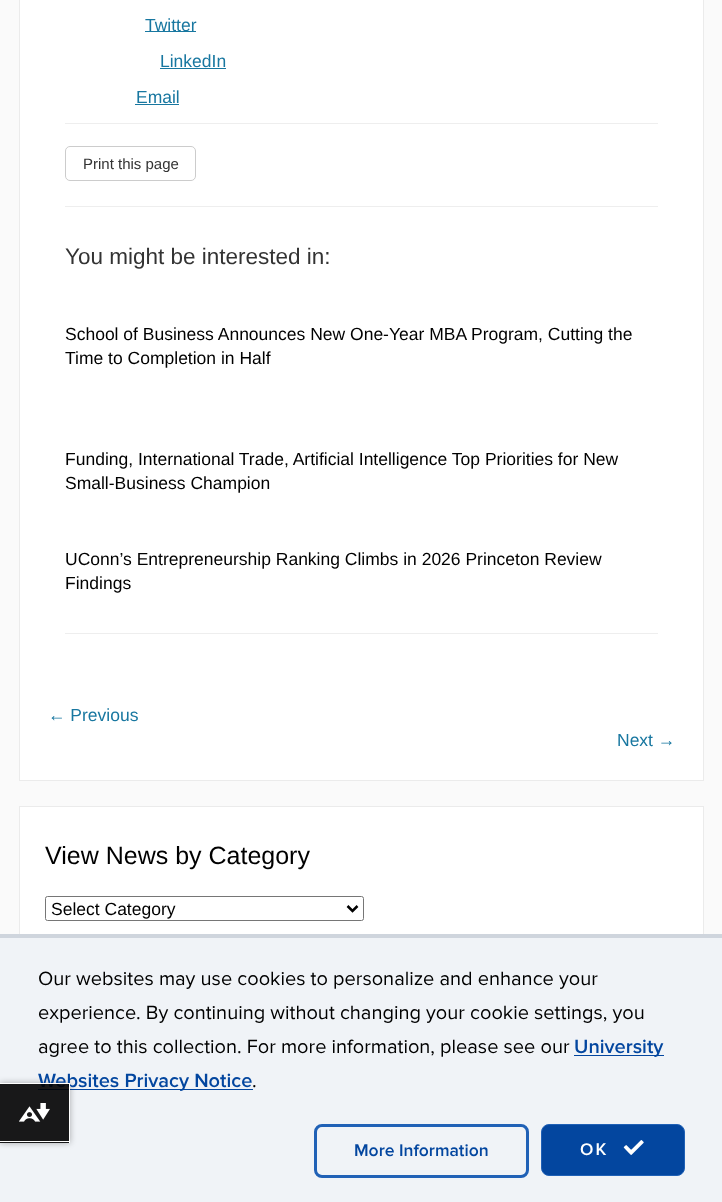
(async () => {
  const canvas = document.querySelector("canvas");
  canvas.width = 722;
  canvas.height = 1202;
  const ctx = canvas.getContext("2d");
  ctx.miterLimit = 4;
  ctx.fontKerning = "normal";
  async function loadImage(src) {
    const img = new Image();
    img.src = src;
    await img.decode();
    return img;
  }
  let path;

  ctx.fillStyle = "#fafafa";
  ctx.fillRect(0, 0, 722, 1202);
  for (const [x, y, w, h, color] of [
    [20, 0, 683, 780, "#ffffff"],
    [703, 0, 1, 781, "#ebebeb"],
    [19, 780, 685, 1, "#ebebeb"],
    [19, 0, 1, 781, "#ebebeb"],
    [65, 123, 593, 1, "#eeeeee"],
    [145, 31, 51, 1, "#1877a0"],
    [160, 68, 66, 1, "#1877a0"],
    [135, 104, 44, 1, "#1877a0"],
  ]) {
    ctx.fillStyle = color;
    ctx.fillRect(x, y, w, h);
  }
  ctx.beginPath();
  ctx.roundRect(65.5, 146.5, 130, 34, 4.5);
  ctx.strokeStyle = "#cccccc";
  ctx.stroke();
  for (const [x, y, w, h, color] of [
    [65, 206, 593, 1, "#eeeeee"],
    [65, 633, 593, 1, "#eeeeee"],
    [20, 807, 683, 127, "#ffffff"],
  ]) {
    ctx.fillStyle = color;
    ctx.fillRect(x, y, w, h);
  }
  ctx.strokeStyle = "#ebebeb";
  ctx.strokeRect(19.5, 806.5, 684, 178);
  ctx.beginPath();
  ctx.roundRect(45.5, 896.5, 318, 24, 2);
  ctx.strokeStyle = "#767676";
  ctx.stroke();
  path = new Path2D("M347.5 906L352.5 911L357.5 906");
  ctx.strokeStyle = "#000000";
  ctx.lineWidth = 2.5;
  ctx.stroke(path);
  for (const [x, y, w, h, color] of [
    [0, 938, 722, 264, "#f0f3f7"],
    [0, 934, 722, 4, "#cfd5dd"],
    [574, 1055, 90, 1, "#03469f"],
    [38, 1089, 215, 1, "#03469f"],
  ]) {
    ctx.fillStyle = color;
    ctx.fillRect(x, y, w, h);
  }
  ctx.beginPath();
  ctx.roundRect(315.5, 1125.5, 212, 51, 6.5);
  ctx.strokeStyle = "#2061b6";
  ctx.lineWidth = 3;
  ctx.stroke();
  ctx.beginPath();
  ctx.roundRect(541.5, 1124.5, 143, 51, 7.5);
  ctx.fill();
  ctx.lineWidth = 1;
  ctx.stroke();
  ctx.drawImage(await loadImage("img/1.png"), 623, 1140, 21, 15);
  ctx.save();
  path = new Path2D("M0 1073H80V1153H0ZM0 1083H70V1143H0Z");
  ctx.clip(path, "evenodd");
  ctx.fillStyle = "rgba(0, 0, 0, 0.3)";
  ctx.filter = "blur(3px)";
  ctx.beginPath();
  ctx.rect(0, 1083, 70, 60);
  ctx.fill();
  ctx.filter = "none";
  ctx.restore();
  ctx.font = "17.5px Liberation Sans";
  ctx.fillStyle = "#1877a0";
  for (const [text, x, y] of [
    ["Twitter", 145, 31],
    ["LinkedIn", 160, 67],
    ["Email", 136, 103],
  ]) {
    ctx.fillText(text, x, y);
  }
  ctx.font = "15px Liberation Sans";
  ctx.fillStyle = "#333333";
  ctx.fillText("Print this page", 83, 169);
  ctx.font = "22.5px Liberation Sans";
  ctx.fillText("You might be interested in:", 65, 264);
  ctx.font = "17.5px Liberation Sans";
  ctx.fillStyle = "#000000";
  for (const [text, x, y] of [
    ["School of Business Announces New One-Year MBA Program, Cutting the", 65, 340],
    ["Time to Completion in Half", 65, 364],
    ["Funding, International Trade, Artificial Intelligence Top Priorities for New", 65, 465],
    ["Small-Business Champion", 65, 489],
    ["UConn’s Entrepreneurship Ranking Climbs in 2026 Princeton Review", 65, 565],
    ["Findings", 65, 589],
  ]) {
    ctx.fillText(text, x, y);
  }
  ctx.fillStyle = "#1877a0";
  ctx.fillText("← Previous", 48, 721);
  ctx.fillText("Next →", 617, 746);
  ctx.font = "25px Liberation Sans";
  ctx.fillStyle = "#000000";
  ctx.fillText("View News by Category", 45, 864);
  ctx.font = "17.5px Liberation Sans";
  ctx.fillText("Select Category", 51, 915);
  ctx.font = "20px Proxima Nova";
  for (const [text, x, y] of [
    ["Our websites may use cookies to personalize and enhance your", 38, 985],
    ["experience. By continuing without changing your cookie settings, you", 38, 1019],
    ["agree to this collection. For more information, please see our", 38, 1053],
  ]) {
    ctx.fillText(text, x, y);
  }
  ctx.font = "600 20px Proxima Nova";
  ctx.fillStyle = "#03469f";
  ctx.fillText("University", 574, 1053);
  ctx.fillText("Websites Privacy Notice", 38, 1087);
  ctx.font = "20px Proxima Nova";
  ctx.fillStyle = "#000000";
  ctx.fillText(".", 252, 1087);
  ctx.font = "600 17.5px Proxima Nova";
  ctx.fillStyle = "#03469f";
  ctx.fillText("More Information", 354, 1156);
  ctx.letterSpacing = "2px";
  ctx.fillStyle = "#ffffff";
  ctx.fillText("OK", 580, 1155);
  for (const [x, y, w, h, color] of [
    [0, 1084, 69, 59, "rgba(0, 0, 0, 0.9)"],
    [0, 1083, 70, 1, "#ffffff"],
    [69, 1083, 1, 60, "#ffffff"],
    [0, 1141, 70, 1, "#ffffff"],
  ]) {
    ctx.fillStyle = color;
    ctx.fillRect(x, y, w, h);
  }
  ctx.drawImage(await loadImage("img/2.png"), 19, 1103, 31, 19);
})();
